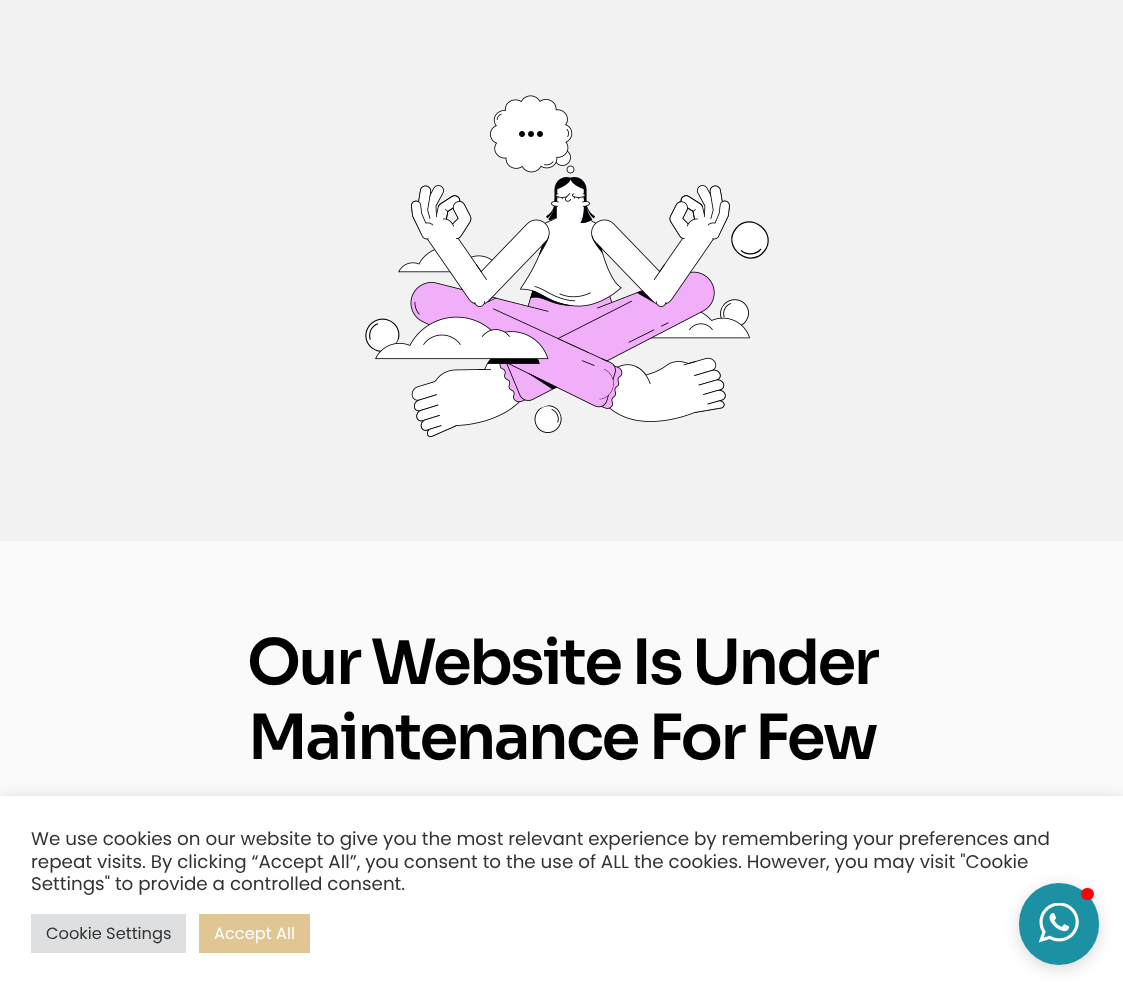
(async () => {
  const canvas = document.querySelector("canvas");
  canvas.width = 1123;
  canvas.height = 989;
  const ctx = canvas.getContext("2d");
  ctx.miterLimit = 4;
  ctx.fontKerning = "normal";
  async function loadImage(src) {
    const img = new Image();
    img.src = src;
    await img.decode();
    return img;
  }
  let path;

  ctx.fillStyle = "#fafafa";
  ctx.fillRect(0, 0, 1123, 989);
  ctx.fillStyle = "#f2f2f2";
  ctx.fillRect(0, 0, 1123, 541);
  ctx.drawImage(await loadImage("img/2.png"), 720, 299, 29, 27);
  ctx.drawImage(await loadImage("img/3.png"), 365, 318, 35, 34);
  ctx.drawImage(await loadImage("img/4.png"), 534, 405, 28, 28);
  ctx.drawImage(await loadImage("img/1.png"), 375, 95, 375, 342);
  ctx.fillStyle = "#ffffff";
  path = new Path2D("M736 228C751 210 779 234 764 252C749 270 721 246 736 228Z");
  ctx.fill(path);
  path = new Path2D("M736 228.5C750.5 210.5 779 233.5 764 251.5C749.5 269.5 721 246.5 736 228.5ZM761 249C756 255 747 255.5 741 250.5");
  ctx.strokeStyle = "#010101";
  ctx.lineWidth = 1.2;
  ctx.stroke(path);
  ctx.fillStyle = "rgba(172, 171, 171, 0.3)";
  ctx.filter = "blur(6px)";
  ctx.beginPath();
  ctx.rect(0, 795, 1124, 194);
  ctx.fill();
  ctx.filter = "none";
  for (const [x, y, w, h, color] of [
    [0, 796, 1123, 193, "#ffffff"],
    [31, 914, 155, 39, "#dedfe0"],
    [199, 914, 111, 39, "#e0c693"],
  ]) {
    ctx.fillStyle = color;
    ctx.fillRect(x, y, w, h);
  }
  ctx.fillStyle = "rgba(0, 0, 0, 0.15)";
  ctx.filter = "blur(7.5px)";
  ctx.beginPath();
  ctx.roundRect(1019, 886, 80, 83, 40);
  ctx.fill();
  ctx.filter = "none";
  ctx.fillStyle = "#1c91a4";
  ctx.beginPath();
  ctx.roundRect(1019, 883, 80, 82, 40);
  ctx.fill();
  ctx.fillStyle = "#ff0000";
  ctx.beginPath();
  ctx.roundRect(1081, 888, 13, 12, 6);
  ctx.fill();
  ctx.drawImage(await loadImage("img/5.png"), 1039, 903, 40, 40);
  ctx.letterSpacing = "-2.5px";
  ctx.font = "600 62.5px Sora";
  ctx.fillStyle = "#000000";
  ctx.fillText("Our Website Is Under", 247, 684);
  ctx.fillText("Maintenance For Few", 248, 759);
  ctx.letterSpacing = "0px";
  ctx.font = "18.33px Poppins";
  ctx.fillStyle = "#333333";
  for (const [text, x, y] of [
    ["We use cookies on our website to give you the most relevant experience by remembering your preferences and", 31, 845],
    ["repeat visits. By clicking “Accept All”, you consent to the use of ALL the cookies. However, you may visit \"Cookie", 31, 868],
    ["Settings\" to provide a controlled consent.", 31, 890],
  ]) {
    ctx.fillText(text, x, y);
  }
  ctx.font = "16.25px Poppins";
  ctx.fillText("Cookie Settings", 46, 939);
  ctx.fillStyle = "#ffffff";
  ctx.fillText("Accept All", 214, 939);
})();
